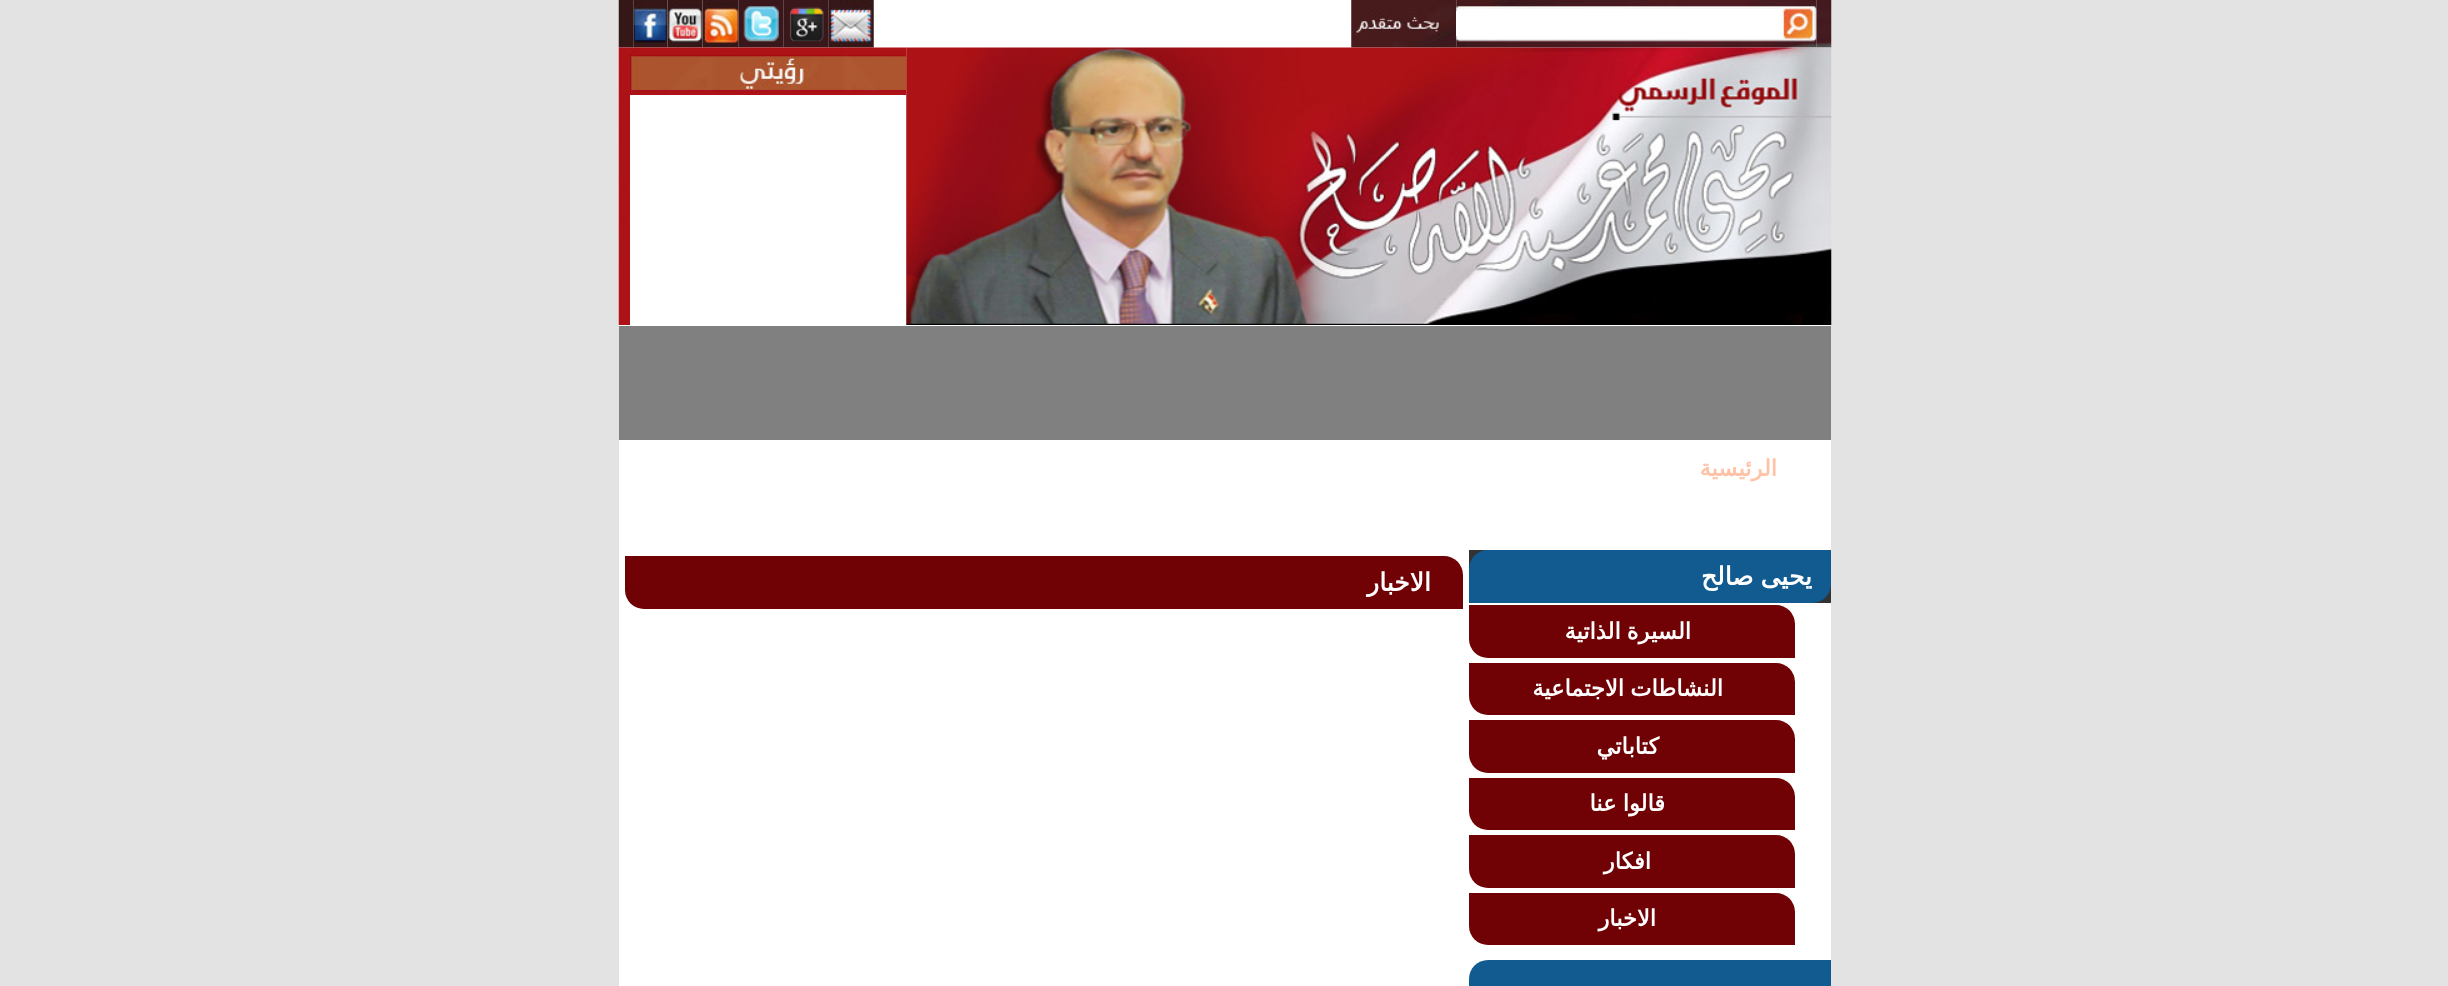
(async () => {
  const canvas = document.querySelector("canvas");
  canvas.width = 2448;
  canvas.height = 986;
  const ctx = canvas.getContext("2d");
  ctx.miterLimit = 4;
  ctx.fontKerning = "normal";
  async function loadImage(src) {
    const img = new Image();
    img.src = src;
    await img.decode();
    return img;
  }
  let path;

  ctx.fillStyle = "#e3e3e3";
  ctx.fillRect(0, 0, 2448, 986);
  ctx.fillStyle = "#ffffff";
  ctx.fillRect(619, 0, 1212, 986);
  ctx.drawImage(await loadImage("img/3.png"), 1351, 0, 106, 48);
  ctx.drawImage(await loadImage("img/2.png"), 1456, 0, 361, 9);
  ctx.drawImage(await loadImage("img/1.png"), 1816, 0, 16, 48);
  ctx.drawImage(await loadImage("img/5.png"), 783, 0, 46, 48);
  ctx.drawImage(await loadImage("img/4.png"), 828, 0, 46, 48);
  ctx.drawImage(await loadImage("img/10.png"), 618, 0, 16, 48);
  ctx.drawImage(await loadImage("img/9.png"), 633, 0, 35, 48);
  ctx.drawImage(await loadImage("img/8.png"), 667, 0, 36, 48);
  ctx.drawImage(await loadImage("img/7.png"), 702, 0, 37, 48);
  ctx.drawImage(await loadImage("img/6.png"), 738, 0, 46, 48);
  ctx.drawImage(await loadImage("img/11.png"), 1780, 8, 37, 31);
  ctx.fillRect(1456, 11, 1, 25);
  ctx.drawImage(await loadImage("img/12.png"), 1456, 38, 361, 10);
  ctx.drawImage(await loadImage("img/14.png"), 630, 47, 277, 48);
  ctx.drawImage(await loadImage("img/13.png"), 906, 47, 926, 278);
  ctx.drawImage(await loadImage("img/15.png"), 618, 47, 12, 278);
  ctx.fillStyle = "#808080";
  ctx.fillRect(619, 326, 1212, 114);
  ctx.fillStyle = "#333333";
  ctx.fillRect(1469, 550, 362, 53);
  ctx.fillStyle = "#115b90";
  ctx.beginPath();
  ctx.roundRect(1469, 550, 362, 53, [19, 0, 19, 0]);
  ctx.fill();
  ctx.fillStyle = "#700205";
  ctx.beginPath();
  ctx.roundRect(1469, 605, 326, 53, [0, 19, 0, 19]);
  ctx.fill();
  ctx.beginPath();
  ctx.roundRect(1469, 663, 326, 52, [0, 19, 0, 19]);
  ctx.fill();
  ctx.beginPath();
  ctx.roundRect(1469, 720, 326, 53, [0, 19, 0, 19]);
  ctx.fill();
  ctx.beginPath();
  ctx.roundRect(1469, 778, 326, 52, [0, 19, 0, 19]);
  ctx.fill();
  ctx.beginPath();
  ctx.roundRect(1469, 835, 326, 53, [0, 19, 0, 19]);
  ctx.fill();
  ctx.beginPath();
  ctx.roundRect(1469, 893, 326, 52, [0, 19, 0, 19]);
  ctx.fill();
  ctx.fillStyle = "#115b90";
  path = new Path2D("M1488 960H1831V986C1831 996.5 1822.5 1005 1812 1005H1469V979C1469 968.5 1477.5 960 1488 960Z");
  ctx.fill(path);
  ctx.fillStyle = "#700205";
  ctx.beginPath();
  ctx.roundRect(625, 556, 838, 53, [0, 19, 0, 19]);
  ctx.fill();
  ctx.direction = "rtl";
  ctx.font = "bold 22.5px DejaVu Sans";
  ctx.fillStyle = "#ffc2a6";
  ctx.fillText("الرئيسية", 1777, 476);
  ctx.wordSpacing = "-1px";
  ctx.font = "bold 25px DejaVu Sans";
  ctx.fillStyle = "#ffffff";
  ctx.fillText("يحيى صالح", 1812, 585);
  ctx.font = "bold 22.5px DejaVu Sans";
  ctx.fillText("السيرة الذاتية", 1691, 639);
  ctx.fillText("النشاطات الاجتماعية", 1723, 696);
  ctx.wordSpacing = "0px";
  ctx.fillText("كتاباتي", 1659, 754);
  ctx.wordSpacing = "-1px";
  ctx.fillText("قالوا عنا", 1665, 811);
  ctx.wordSpacing = "0px";
  ctx.fillText("افكار", 1651, 869);
  ctx.fillText("الاخبار", 1656, 926);
  ctx.font = "bold 25px DejaVu Sans";
  ctx.fillText("الاخبار", 1431, 591);
})();
